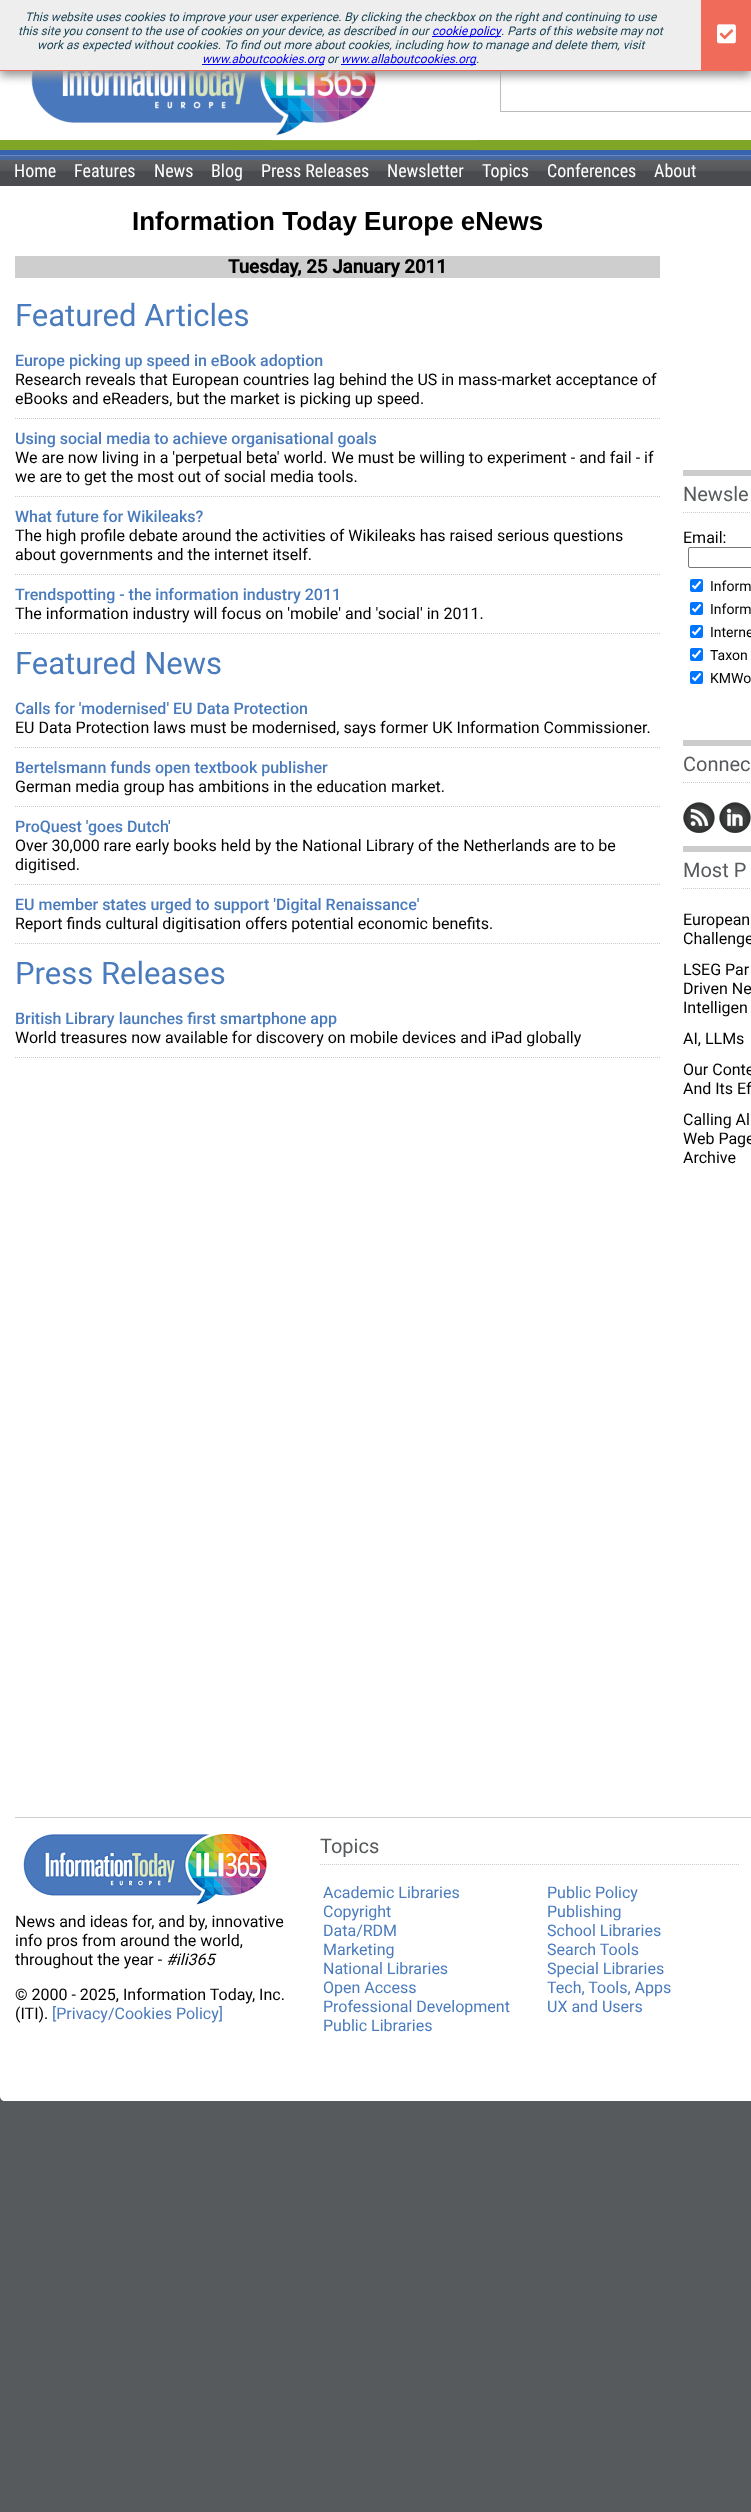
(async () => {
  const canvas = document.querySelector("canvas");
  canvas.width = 751;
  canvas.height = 2512;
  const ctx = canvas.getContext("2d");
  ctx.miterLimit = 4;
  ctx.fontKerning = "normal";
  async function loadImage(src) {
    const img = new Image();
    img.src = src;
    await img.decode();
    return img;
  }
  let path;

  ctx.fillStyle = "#575a5c";
  ctx.fillRect(0, 0, 751, 2512);
  ctx.drawImage(await loadImage("img/2.png"), 0, 71, 751, 89);
  ctx.strokeStyle = "#bbbbbb";
  ctx.strokeRect(500.5, 50.5, 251, 61);
  ctx.fillStyle = "#999999";
  ctx.filter = "blur(5px)";
  ctx.beginPath();
  ctx.rect(0, 5, 751, 71);
  ctx.fill();
  ctx.filter = "none";
  for (const [x, y, w, h, color] of [
    [0, 0, 701, 70, "#eeeeee"],
    [0, 70, 751, 1, "#f06b5a"],
    [432, 36, 69, 1, "#0000ee"],
    [202, 64, 122, 1, "#0000ee"],
    [341, 64, 135, 1, "#0000ee"],
    [701, 0, 50, 70, "#f06b5a"],
  ]) {
    ctx.fillStyle = color;
    ctx.fillRect(x, y, w, h);
  }
  ctx.drawImage(await loadImage("img/1.png"), 717, 24, 19, 20);
  ctx.drawImage(await loadImage("img/3.png"), 0, 155, 751, 31);
  ctx.fillStyle = "#ffffff";
  path = new Path2D("M0 186H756V2096C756 2099 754 2101 751 2101H5C2 2101 0 2099 0 2096Z");
  ctx.fill(path);
  ctx.fillStyle = "#cecece";
  ctx.fillRect(15, 256, 645, 22);
  path = new Path2D("M15 418.5H660");
  ctx.strokeStyle = "#cccccc";
  ctx.setLineDash([1, 1]);
  ctx.stroke(path);
  path = new Path2D("M15 496.5H660");
  ctx.stroke(path);
  path = new Path2D("M15 574.5H660");
  ctx.stroke(path);
  path = new Path2D("M15 633.5H660");
  ctx.stroke(path);
  path = new Path2D("M15 747.5H660");
  ctx.stroke(path);
  path = new Path2D("M15 806.5H660");
  ctx.stroke(path);
  path = new Path2D("M15 884.5H660");
  ctx.stroke(path);
  path = new Path2D("M15 943.5H660");
  ctx.stroke(path);
  path = new Path2D("M15 1057.5H660");
  ctx.stroke(path);
  ctx.fillStyle = "#cccccc";
  ctx.fillRect(683, 470, 68, 6);
  path = new Path2D("M683 512.5H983");
  ctx.stroke(path);
  ctx.beginPath();
  ctx.roundRect(688.5, 547.5, 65, 20, 1.5);
  ctx.strokeStyle = "#767676";
  ctx.setLineDash([]);
  ctx.stroke();
  ctx.fillStyle = "#0075ff";
  ctx.beginPath();
  ctx.roundRect(690, 579, 13, 13, 2);
  ctx.fill();
  path = new Path2D("M692.5 585.5L695 588L700.5 581.5");
  ctx.strokeStyle = "#ffffff";
  ctx.lineWidth = 2.1;
  ctx.stroke(path);
  ctx.beginPath();
  ctx.roundRect(690, 602, 13, 13, 2);
  ctx.fill();
  path = new Path2D("M692.5 608.5L695 611L700.5 604.5");
  ctx.stroke(path);
  ctx.beginPath();
  ctx.roundRect(690, 625, 13, 13, 2);
  ctx.fill();
  path = new Path2D("M692.5 631.5L695 634L700.5 627.5");
  ctx.stroke(path);
  ctx.beginPath();
  ctx.roundRect(690, 648, 13, 13, 2);
  ctx.fill();
  path = new Path2D("M692.5 654.5L695 657L700.5 650.5");
  ctx.stroke(path);
  ctx.beginPath();
  ctx.roundRect(690, 671, 13, 13, 2);
  ctx.fill();
  path = new Path2D("M692.5 677.5L695 680L700.5 673.5");
  ctx.stroke(path);
  ctx.fillStyle = "#cccccc";
  ctx.fillRect(683, 740, 68, 6);
  path = new Path2D("M683 782.5H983");
  ctx.strokeStyle = "#cccccc";
  ctx.lineWidth = 1;
  ctx.setLineDash([1, 1]);
  ctx.stroke(path);
  ctx.drawImage(await loadImage("img/4.png"), 683, 802, 32, 31);
  ctx.drawImage(await loadImage("img/5.png"), 719, 802, 32, 31);
  ctx.fillRect(683, 846, 68, 6);
  path = new Path2D("M683 888.5H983");
  ctx.stroke(path);
  ctx.fillStyle = "#cecece";
  ctx.fillRect(15, 1817, 736, 1);
  ctx.drawImage(await loadImage("img/6.png"), 23, 1834, 244, 71);
  path = new Path2D("M320 1864.5H740");
  ctx.stroke(path);
  ctx.font = "italic 12px Roboto";
  ctx.fillStyle = "#1a4455";
  ctx.fillText("This website uses cookies to improve your user experience. By clicking the checkbox on the right and continuing to use", 25, 21);
  ctx.fillText("this site you consent to the use of cookies on your device, as described in our", 18, 35);
  ctx.wordSpacing = "-1px";
  ctx.fillStyle = "#0000ee";
  ctx.fillText("cookie policy", 432, 35);
  ctx.wordSpacing = "0px";
  ctx.fillStyle = "#1a4455";
  ctx.fillText(". Parts of this website may not", 501, 35);
  ctx.fillText("work as expected without cookies. To find out more about cookies, including how to manage and delete them, visit", 37, 49);
  ctx.fillStyle = "#0000ee";
  ctx.fillText("www.aboutcookies.org", 202, 63);
  ctx.fillStyle = "#1a4455";
  ctx.fillText("or", 327, 63);
  ctx.fillStyle = "#0000ee";
  ctx.fillText("www.allaboutcookies.org", 341, 63);
  ctx.fillStyle = "#1a4455";
  ctx.fillText(".", 476, 63);
  ctx.font = "18px Roboto Condensed";
  ctx.fillStyle = "#ffffff";
  for (const [text, x, y] of [
    ["Home", 14, 177],
    ["Features", 74, 177],
    ["News", 154, 177],
    ["Blog", 211, 177],
    ["Press Releases", 261, 177],
    ["Newsletter", 387, 177],
    ["Topics", 482, 177],
    ["Conferences", 547, 177],
    ["About", 654, 177],
  ]) {
    ctx.fillText(text, x, y);
  }
  ctx.font = "bold 26px Liberation Sans";
  ctx.fillStyle = "#000000";
  ctx.fillText("Information Today Europe eNews", 132, 230);
  ctx.font = "bold 18.75px Roboto";
  ctx.fillText("Tuesday, 25 January 2011", 228, 273);
  ctx.font = "31px Roboto";
  ctx.fillStyle = "#4a7bbd";
  ctx.fillText("Featured Articles", 15, 326);
  ctx.font = "500 16px Roboto";
  ctx.fillText("Europe picking up speed in eBook adoption", 15, 366);
  ctx.font = "16px Roboto";
  ctx.fillStyle = "#000000";
  ctx.fillText("Research reveals that European countries lag behind the US in mass-market acceptance of", 15, 385);
  ctx.fillText("eBooks and eReaders, but the market is picking up speed.", 15, 404);
  ctx.font = "500 16px Roboto";
  ctx.fillStyle = "#4a7bbd";
  ctx.fillText("Using social media to achieve organisational goals", 15, 444);
  ctx.font = "16px Roboto";
  ctx.fillStyle = "#000000";
  ctx.fillText("We are now living in a 'perpetual beta' world. We must be willing to experiment - and fail - if", 15, 463);
  ctx.fillText("we are to get the most out of social media tools.", 15, 482);
  ctx.font = "500 16px Roboto";
  ctx.fillStyle = "#4a7bbd";
  ctx.fillText("What future for Wikileaks?", 15, 522);
  ctx.font = "16px Roboto";
  ctx.fillStyle = "#000000";
  ctx.fillText("The high profile debate around the activities of Wikileaks has raised serious questions", 15, 541);
  ctx.fillText("about governments and the internet itself.", 15, 560);
  ctx.font = "500 16px Roboto";
  ctx.fillStyle = "#4a7bbd";
  ctx.fillText("Trendspotting - the information industry 2011", 15, 600);
  ctx.font = "16px Roboto";
  ctx.fillStyle = "#000000";
  ctx.fillText("The information industry will focus on 'mobile' and 'social' in 2011.", 15, 619);
  ctx.font = "31px Roboto";
  ctx.fillStyle = "#4a7bbd";
  ctx.fillText("Featured News", 15, 674);
  ctx.font = "500 16px Roboto";
  ctx.fillText("Calls for 'modernised' EU Data Protection", 15, 714);
  ctx.font = "16px Roboto";
  ctx.fillStyle = "#000000";
  ctx.fillText("EU Data Protection laws must be modernised, says former UK Information Commissioner.", 15, 733);
  ctx.font = "500 16px Roboto";
  ctx.fillStyle = "#4a7bbd";
  ctx.fillText("Bertelsmann funds open textbook publisher", 15, 773);
  ctx.font = "16px Roboto";
  ctx.fillStyle = "#000000";
  ctx.fillText("German media group has ambitions in the education market.", 15, 792);
  ctx.font = "500 16px Roboto";
  ctx.fillStyle = "#4a7bbd";
  ctx.fillText("ProQuest 'goes Dutch'", 15, 832);
  ctx.font = "16px Roboto";
  ctx.fillStyle = "#000000";
  ctx.fillText("Over 30,000 rare early books held by the National Library of the Netherlands are to be", 15, 851);
  ctx.fillText("digitised.", 15, 870);
  ctx.font = "500 16px Roboto";
  ctx.fillStyle = "#4a7bbd";
  ctx.fillText("EU member states urged to support 'Digital Renaissance'", 15, 910);
  ctx.font = "16px Roboto";
  ctx.fillStyle = "#000000";
  ctx.fillText("Report finds cultural digitisation offers potential economic benefits.", 15, 929);
  ctx.font = "31px Roboto";
  ctx.fillStyle = "#4a7bbd";
  ctx.fillText("Press Releases", 15, 984);
  ctx.font = "500 16px Roboto";
  ctx.fillText("British Library launches first smartphone app", 15, 1024);
  ctx.font = "16px Roboto";
  ctx.fillStyle = "#000000";
  ctx.fillText("World treasures now available for discovery on mobile devices and iPad globally", 15, 1043);
  ctx.font = "20px Roboto";
  ctx.fillStyle = "#575a5c";
  ctx.fillText("Newsle", 683, 501);
  ctx.font = "16px Roboto";
  ctx.fillStyle = "#000000";
  ctx.fillText("Email:", 683, 543);
  ctx.font = "14px Roboto";
  for (const [text, x, y] of [
    ["Inform", 710, 591],
    ["Inform", 710, 614],
    ["Interne", 710, 637],
    ["Taxon", 710, 660],
    ["KMWo", 710, 683],
  ]) {
    ctx.fillText(text, x, y);
  }
  ctx.font = "20px Roboto";
  ctx.fillStyle = "#575a5c";
  ctx.fillText("Connec", 683, 771);
  ctx.fillText("Most P", 683, 877);
  ctx.font = "16px Roboto";
  ctx.fillStyle = "#000000";
  for (const [text, x, y] of [
    ["European", 683, 925],
    ["Challenge", 683, 944],
    ["LSEG Par", 683, 975],
    ["Driven Ne", 683, 994],
    ["Intelligen", 683, 1013],
    ["AI, LLMs", 683, 1044],
    ["Our Conte", 683, 1075],
    ["And Its Ef", 683, 1094],
    ["Calling Al", 683, 1125],
    ["Web Page", 683, 1144],
    ["Archive", 683, 1163],
    ["News and ideas for, and by, innovative", 15, 1927],
    ["info pros from around the world,", 15, 1946],
    ["throughout the year -", 15, 1965],
  ]) {
    ctx.fillText(text, x, y);
  }
  ctx.font = "italic 16px Roboto";
  ctx.fillText("#ili365", 166, 1965);
  ctx.font = "16px Roboto";
  ctx.fillText("© 2000 - 2025, Information Today, Inc.", 15, 2000);
  ctx.fillText("(ITI).", 15, 2019);
  ctx.fillStyle = "#4a7bbd";
  ctx.fillText("[Privacy/Cookies Policy]", 52, 2019);
  ctx.font = "20px Roboto";
  ctx.fillStyle = "#575a5c";
  ctx.fillText("Topics", 320, 1853);
  ctx.font = "16px Roboto";
  ctx.fillStyle = "#4a7bbd";
  for (const [text, x, y] of [
    ["Academic Libraries", 323, 1898],
    ["Copyright", 323, 1917],
    ["Data/RDM", 323, 1936],
    ["Marketing", 323, 1955],
    ["National Libraries", 323, 1974],
    ["Open Access", 323, 1993],
    ["Professional Development", 323, 2012],
    ["Public Libraries", 323, 2031],
    ["Public Policy", 547, 1898],
    ["Publishing", 547, 1917],
    ["School Libraries", 547, 1936],
    ["Search Tools", 547, 1955],
    ["Special Libraries", 547, 1974],
    ["Tech, Tools, Apps", 547, 1993],
    ["UX and Users", 547, 2012],
  ]) {
    ctx.fillText(text, x, y);
  }
})();
